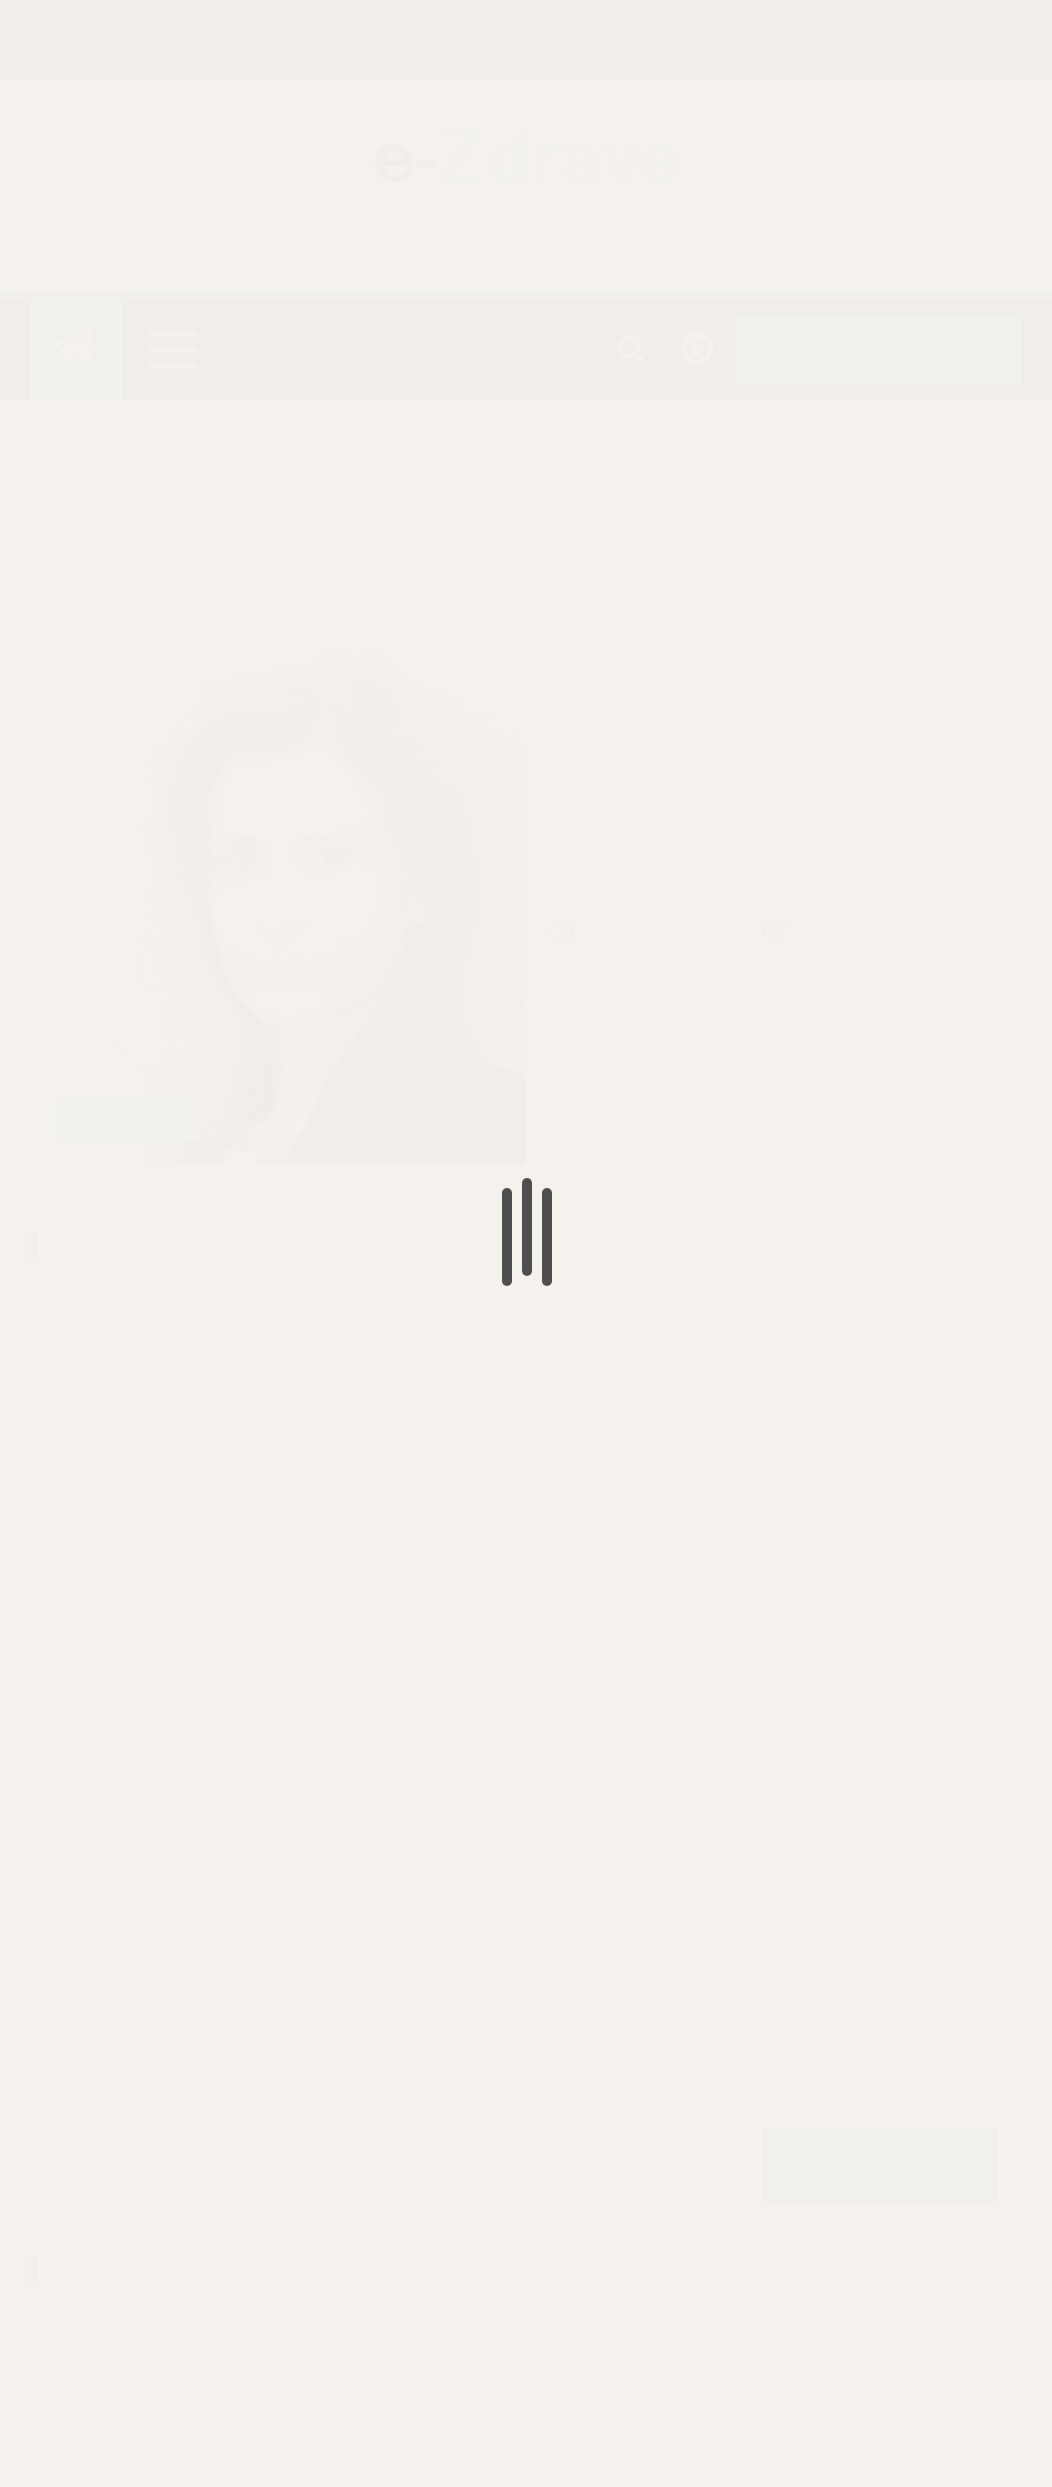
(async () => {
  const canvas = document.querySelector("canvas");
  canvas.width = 1052;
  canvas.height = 2487;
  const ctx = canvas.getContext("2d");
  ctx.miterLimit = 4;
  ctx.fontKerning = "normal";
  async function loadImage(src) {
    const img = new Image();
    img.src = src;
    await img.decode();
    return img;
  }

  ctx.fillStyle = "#f5f2ee";
  ctx.fillRect(0, 0, 1052, 2487);
  ctx.fillStyle = "#f1eeea";
  ctx.fillRect(0, 0, 1052, 80);
  ctx.drawImage(await loadImage("img/1.png"), 373, 129, 308, 54);
  for (const [x, y, w, h, color] of [
    [0, 298, 1052, 102, "#f1eeea"],
    [0, 292, 1052, 6, "#f0f0ed"],
    [30, 298, 92, 102, "#f0f0ed"],
  ]) {
    ctx.fillStyle = color;
    ctx.fillRect(x, y, w, h);
  }
  ctx.drawImage(await loadImage("img/2.png"), 54, 328, 44, 35);
  for (const [x, y, w, h, color] of [
    [150, 348, 46, 4, "#f5f2ee"],
    [150, 332, 46, 4, "#f5f2ee"],
    [150, 364, 46, 4, "#f5f2ee"],
  ]) {
    ctx.fillStyle = color;
    ctx.fillRect(x, y, w, h);
  }
  ctx.drawImage(await loadImage("img/3.png"), 618, 336, 26, 26);
  ctx.fillStyle = "#f4eeea";
  ctx.fillRect(666, 316, 66, 66);
  ctx.drawImage(await loadImage("img/4.png"), 682, 333, 31, 31);
  ctx.fillStyle = "#f0f0ed";
  ctx.fillRect(732, 316, 290, 68);
  ctx.drawImage(await loadImage("img/5.png"), 30, 644, 496, 520);
  ctx.fillStyle = "rgba(240, 240, 237, 0.95)";
  ctx.fillRect(54, 1100, 146, 40);
  ctx.drawImage(await loadImage("img/6.png"), 550, 919, 24, 25);
  ctx.drawImage(await loadImage("img/7.png"), 762, 921, 24, 20);
  for (const [x, y, w, h, color] of [
    [30, 1232, 8, 30, "#f0f0ed"],
    [762, 2128, 236, 76, "#f0f0ed"],
    [30, 2256, 8, 30, "#f0f0ed"],
  ]) {
    ctx.fillStyle = color;
    ctx.fillRect(x, y, w, h);
  }
  ctx.fillStyle = "#4e4e4e";
  ctx.beginPath();
  ctx.roundRect(522, 1178, 10, 98, 5);
  ctx.fill();
  ctx.beginPath();
  ctx.roundRect(502, 1188, 10, 98, 5);
  ctx.fill();
  ctx.beginPath();
  ctx.roundRect(542, 1188, 10, 98, 5);
  ctx.fill();
})();
